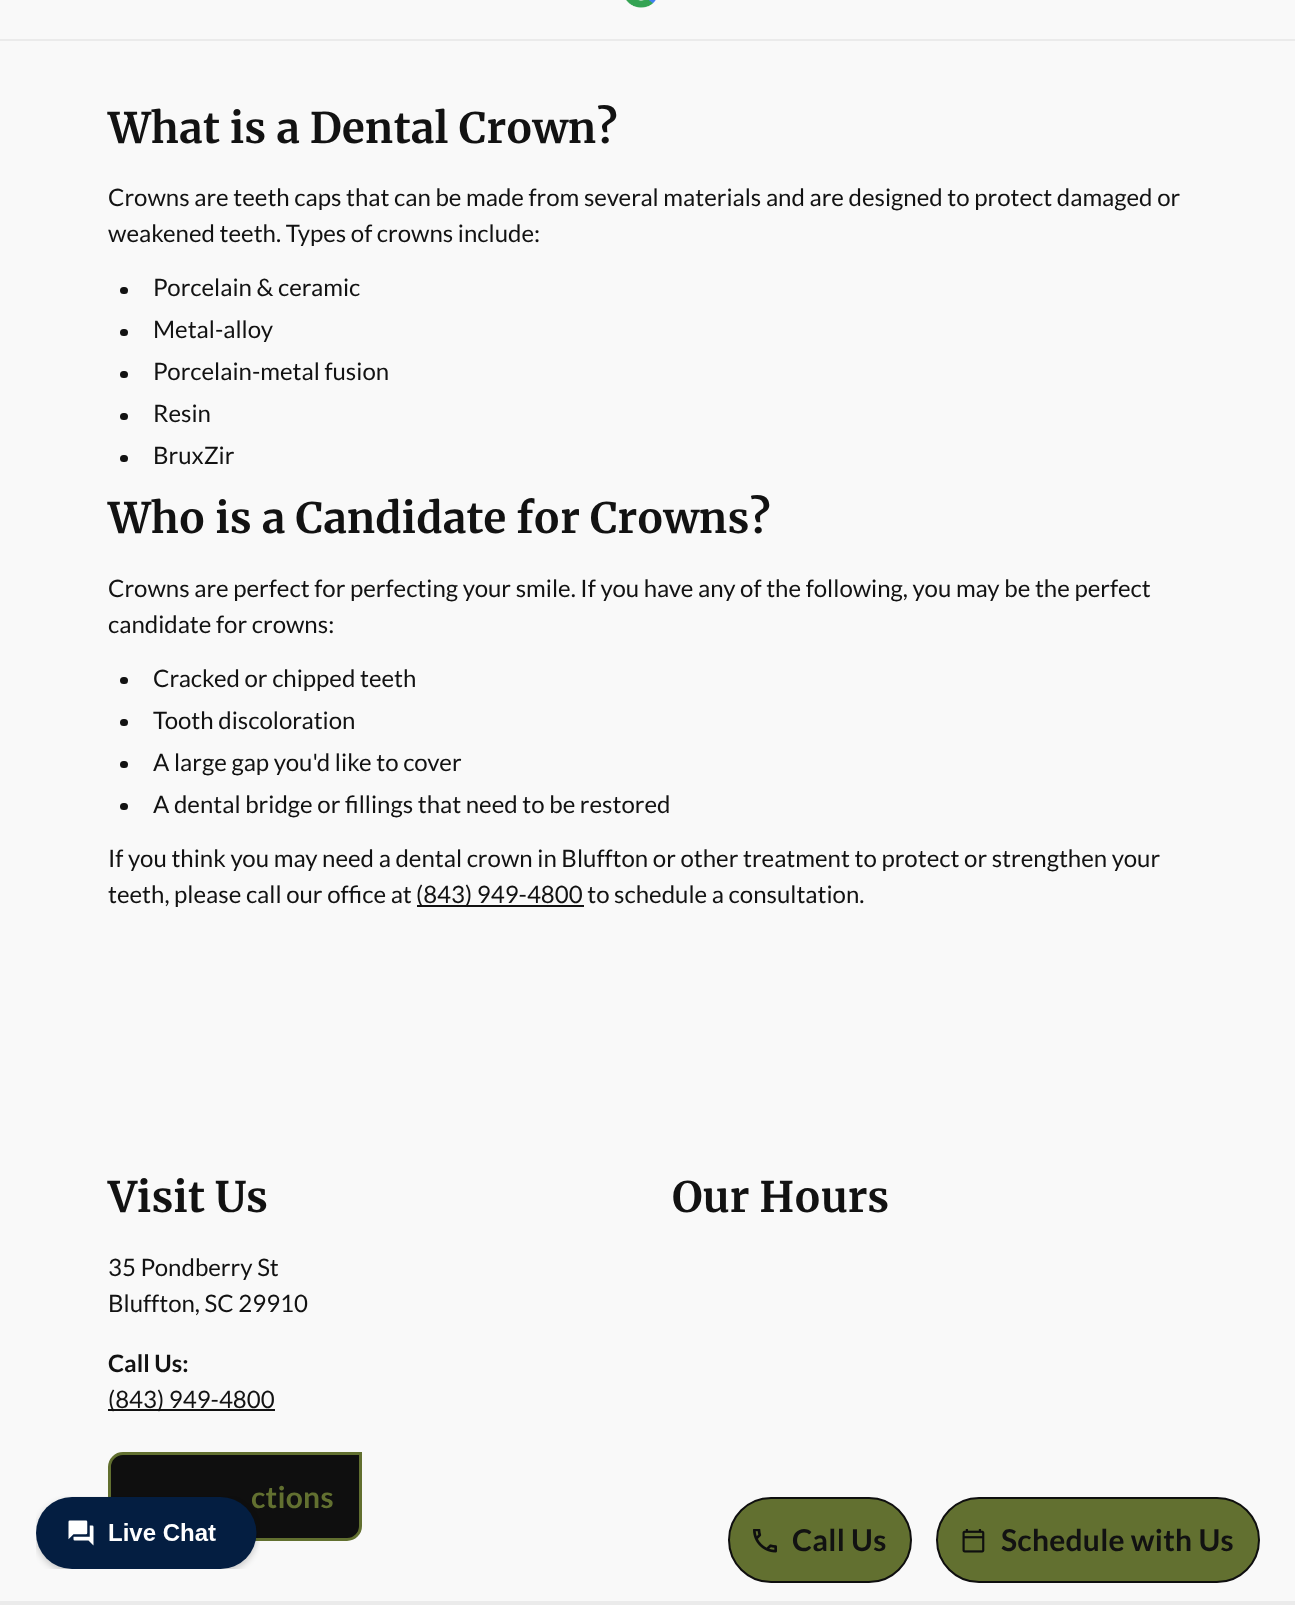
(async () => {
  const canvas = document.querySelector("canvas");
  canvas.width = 1295;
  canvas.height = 1605;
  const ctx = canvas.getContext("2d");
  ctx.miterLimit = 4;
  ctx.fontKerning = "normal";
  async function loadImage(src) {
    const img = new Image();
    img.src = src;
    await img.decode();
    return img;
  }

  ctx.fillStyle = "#f9f9f9";
  ctx.fillRect(0, 0, 1295, 1605);
  ctx.fillStyle = "#ebebeb";
  ctx.fillRect(0, 39, 1295, 2);
  ctx.drawImage(await loadImage("img/1.png"), 626, 0, 30, 8);
  ctx.fillStyle = "#121212";
  ctx.beginPath();
  ctx.roundRect(120, 287, 8, 7, 3.5);
  ctx.fill();
  ctx.beginPath();
  ctx.roundRect(120, 329, 8, 7, 3.5);
  ctx.fill();
  ctx.beginPath();
  ctx.roundRect(120, 371, 8, 7, 3.5);
  ctx.fill();
  ctx.beginPath();
  ctx.roundRect(120, 413, 8, 7, 3.5);
  ctx.fill();
  ctx.beginPath();
  ctx.roundRect(120, 455, 8, 7, 3.5);
  ctx.fill();
  ctx.beginPath();
  ctx.roundRect(120, 677, 8, 7, 3.5);
  ctx.fill();
  ctx.beginPath();
  ctx.roundRect(120, 719, 8, 7, 3.5);
  ctx.fill();
  ctx.beginPath();
  ctx.roundRect(120, 761, 8, 7, 3.5);
  ctx.fill();
  ctx.beginPath();
  ctx.roundRect(120, 803, 8, 7, 3.5);
  ctx.fill();
  ctx.fillRect(417, 905, 167, 2);
  ctx.fillRect(108, 1409, 167, 2);
  ctx.fillStyle = "#0f0f0f";
  ctx.beginPath();
  ctx.roundRect(109.5, 1453.5, 251, 86, [13.5, 0, 13.5, 0]);
  ctx.fill();
  ctx.strokeStyle = "#627030";
  ctx.lineWidth = 3;
  ctx.stroke();
  ctx.fillStyle = "#627030";
  ctx.beginPath();
  ctx.roundRect(729, 1498, 182, 84, 42);
  ctx.fill();
  ctx.strokeStyle = "#0f0f0f";
  ctx.lineWidth = 2;
  ctx.stroke();
  ctx.drawImage(await loadImage("img/2.png"), 753, 1529, 24, 24);
  ctx.beginPath();
  ctx.roundRect(937, 1498, 322, 84, 42);
  ctx.fill();
  ctx.stroke();
  ctx.drawImage(await loadImage("img/3.png"), 962, 1529, 23, 24);
  ctx.fillStyle = "#ebebeb";
  ctx.fillRect(0, 1601, 1295, 4);
  ctx.font = "bold 42px Merriweather";
  ctx.fillStyle = "#121212";
  ctx.fillText("What is a Dental Crown?", 108, 143);
  ctx.font = "24px Lato";
  for (const [text, x, y] of [
    ["Crowns are teeth caps that can be made from several materials and are designed to protect damaged or", 108, 206],
    ["weakened teeth. Types of crowns include:", 108, 242],
    ["Porcelain & ceramic", 153, 296],
    ["Metal-alloy", 153, 338],
    ["Porcelain-metal fusion", 153, 380],
    ["Resin", 153, 422],
    ["BruxZir", 153, 464],
  ]) {
    ctx.fillText(text, x, y);
  }
  ctx.font = "bold 42px Merriweather";
  ctx.fillText("Who is a Candidate for Crowns?", 108, 533);
  ctx.font = "24px Lato";
  for (const [text, x, y] of [
    ["Crowns are perfect for perfecting your smile. If you have any of the following, you may be the perfect", 108, 597],
    ["candidate for crowns:", 108, 633],
    ["Cracked or chipped teeth", 153, 687],
    ["Tooth discoloration", 153, 729],
    ["A large gap you'd like to cover", 153, 771],
    ["A dental bridge or fillings that need to be restored", 153, 813],
    ["If you think you may need a dental crown in Bluffton or other treatment to protect or strengthen your", 108, 867],
    ["teeth, please call our office at", 108, 903],
    ["(843) 949-4800 to schedule a consultation.", 416, 903],
  ]) {
    ctx.fillText(text, x, y);
  }
  ctx.font = "bold 42px Merriweather";
  ctx.fillText("Visit Us", 108, 1212);
  ctx.font = "24px Lato";
  ctx.fillText("35 Pondberry St", 108, 1276);
  ctx.fillText("Bluffton, SC 29910", 108, 1312);
  ctx.font = "bold 24px Lato";
  ctx.fillText("Call Us:", 108, 1372);
  ctx.font = "24px Lato";
  ctx.fillText("(843) 949-4800", 108, 1408);
  ctx.letterSpacing = "0.25px";
  ctx.font = "bold 30px Lato";
  ctx.fillStyle = "#627030";
  ctx.fillText("ctions", 251, 1508);
  ctx.letterSpacing = "0px";
  ctx.font = "bold 42px Merriweather";
  ctx.fillStyle = "#121212";
  ctx.fillText("Our Hours", 672, 1212);
  ctx.letterSpacing = "0.25px";
  ctx.font = "bold 30px Lato";
  ctx.fillText("Call Us", 792, 1551);
  ctx.fillText("Schedule with Us", 1001, 1551);
  ctx.drawImage(await loadImage("img/4.png"), 36, 1496, 224, 73);
})();
